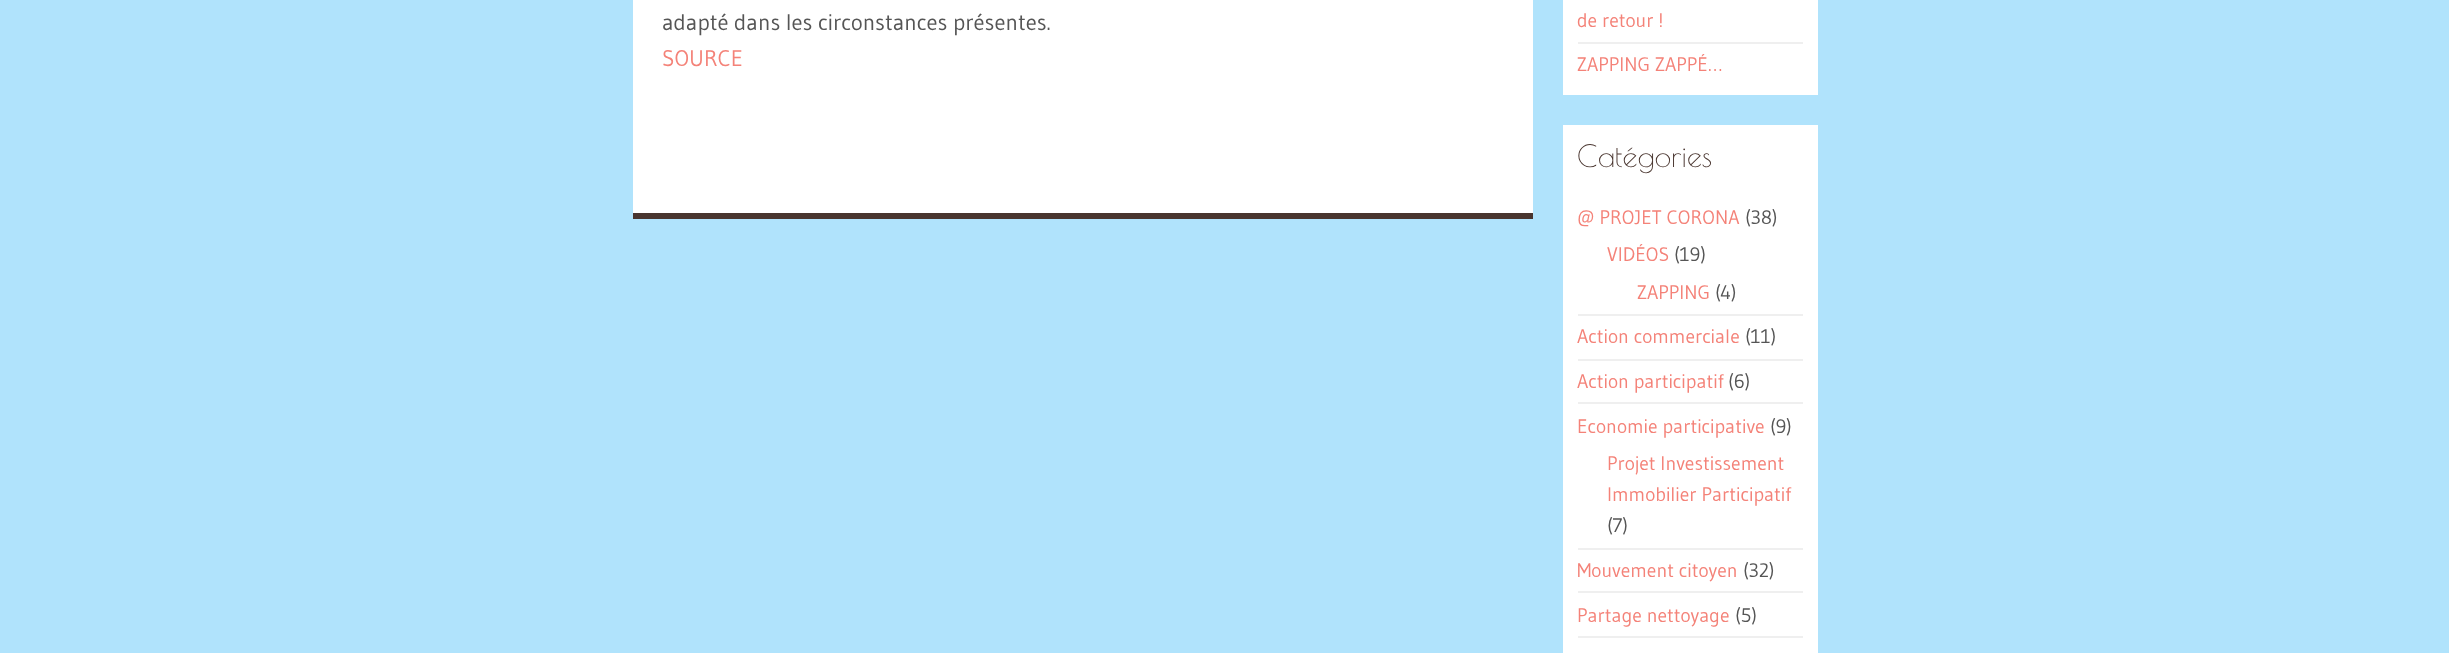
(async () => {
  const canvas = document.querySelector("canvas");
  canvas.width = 2449;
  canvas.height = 653;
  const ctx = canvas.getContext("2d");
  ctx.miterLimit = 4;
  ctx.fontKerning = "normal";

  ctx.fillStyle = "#b0e3fc";
  ctx.fillRect(0, 0, 2449, 653);
  for (const [x, y, w, h, color] of [
    [633, 0, 900, 213, "#ffffff"],
    [633, 213, 900, 6, "#49352f"],
    [1563, 0, 255, 95, "#ffffff"],
    [1578, 42, 225, 2, "#efefef"],
    [1563, 125, 255, 528, "#ffffff"],
    [1578, 314, 225, 2, "#efefef"],
    [1578, 359, 225, 2, "#efefef"],
    [1578, 402, 225, 2, "#efefef"],
    [1578, 548, 225, 2, "#efefef"],
    [1578, 591, 225, 2, "#efefef"],
    [1578, 636, 225, 2, "#efefef"],
  ]) {
    ctx.fillStyle = color;
    ctx.fillRect(x, y, w, h);
  }
  ctx.font = "22.5px Gudea";
  ctx.fillStyle = "#555555";
  ctx.fillText("adapté dans les circonstances présentes.", 662, 30);
  ctx.fillStyle = "#f48278";
  ctx.fillText("SOURCE", 662, 66);
  ctx.font = "19.5px Gudea";
  ctx.fillText("de retour !", 1577, 27);
  ctx.fillText("ZAPPING ZAPPÉ…", 1577, 71);
  ctx.font = "30px Poiret One";
  ctx.fillStyle = "#49352f";
  ctx.fillText("Catégories", 1577, 167);
  ctx.font = "19.5px Gudea";
  ctx.fillStyle = "#f48278";
  ctx.fillText("@ PROJET CORONA", 1577, 224);
  ctx.fillStyle = "#555555";
  ctx.fillText("(38)", 1745, 224);
  ctx.fillStyle = "#f48278";
  ctx.fillText("VIDÉOS", 1607, 261);
  ctx.fillStyle = "#555555";
  ctx.fillText("(19)", 1674, 261);
  ctx.fillStyle = "#f48278";
  ctx.fillText("ZAPPING", 1637, 299);
  ctx.fillStyle = "#555555";
  ctx.fillText("(4)", 1715, 299);
  ctx.fillStyle = "#f48278";
  ctx.fillText("Action commerciale", 1577, 343);
  ctx.fillStyle = "#555555";
  ctx.fillText("(11)", 1745, 343);
  ctx.fillStyle = "#f48278";
  ctx.fillText("Action participatif", 1577, 388);
  ctx.fillStyle = "#555555";
  ctx.fillText("(6)", 1728, 388);
  ctx.fillStyle = "#f48278";
  ctx.fillText("Economie participative", 1577, 433);
  ctx.fillStyle = "#555555";
  ctx.fillText("(9)", 1770, 433);
  ctx.fillStyle = "#f48278";
  ctx.fillText("Projet Investissement", 1607, 470);
  ctx.fillText("Immobilier Participatif", 1607, 501);
  ctx.fillStyle = "#555555";
  ctx.fillText("(7)", 1607, 532);
  ctx.fillStyle = "#f48278";
  ctx.fillText("Mouvement citoyen", 1577, 577);
  ctx.fillStyle = "#555555";
  ctx.fillText("(32)", 1743, 577);
  ctx.fillStyle = "#f48278";
  ctx.fillText("Partage nettoyage", 1577, 622);
  ctx.fillStyle = "#555555";
  ctx.fillText("(5)", 1735, 622);
})();
